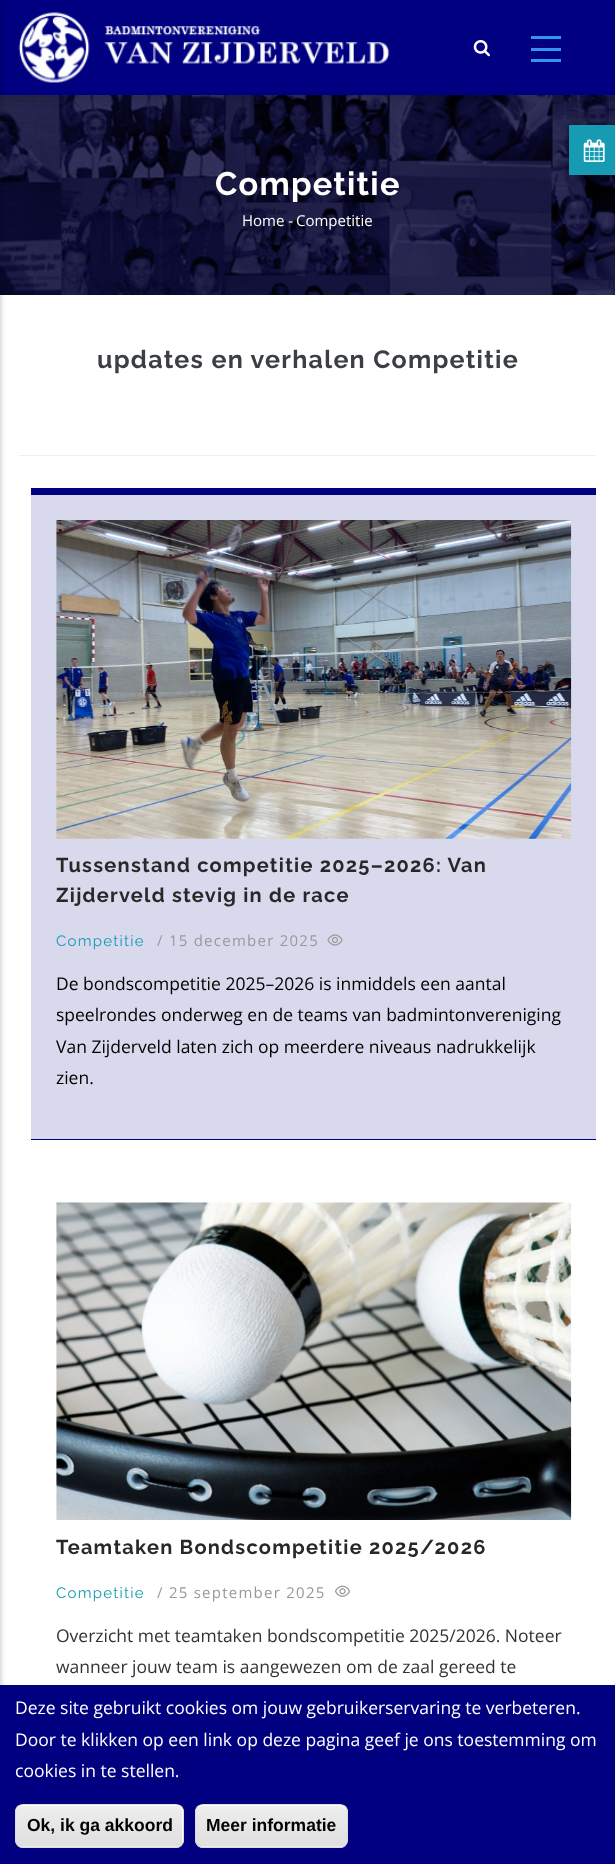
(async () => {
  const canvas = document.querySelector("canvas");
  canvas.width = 615;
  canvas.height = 1864;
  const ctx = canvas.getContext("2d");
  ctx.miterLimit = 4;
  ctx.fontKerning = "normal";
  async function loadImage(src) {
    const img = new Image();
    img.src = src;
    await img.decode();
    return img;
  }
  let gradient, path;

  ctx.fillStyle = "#ffffff";
  ctx.fillRect(0, 0, 615, 1864);
  ctx.drawImage(await loadImage("img/4.png"), 0, 95, 615, 200);
  ctx.fillStyle = "rgba(0, 0, 0, 0.1)";
  ctx.filter = "blur(3px)";
  ctx.beginPath();
  ctx.rect(-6, -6, 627, 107);
  ctx.fill();
  ctx.filter = "none";
  ctx.fillStyle = "#000080";
  ctx.fillRect(0, 0, 615, 95);
  ctx.fillStyle = "rgba(0, 0, 0, 0.2)";
  ctx.filter = "blur(2.5px)";
  ctx.beginPath();
  ctx.rect(-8, 4, 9, 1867);
  ctx.fill();
  ctx.filter = "none";
  ctx.drawImage(await loadImage("img/1.png"), 473, 40, 17, 17);
  for (const [x, y, w, h, color] of [
    [531, 36, 30, 3, "#3296ed"],
    [531, 48, 30, 3, "#3296ed"],
    [531, 59, 30, 3, "#3296ed"],
  ]) {
    ctx.fillStyle = color;
    ctx.fillRect(x, y, w, h);
  }
  ctx.drawImage(await loadImage("img/2.png"), 18, 12, 372, 71);
  ctx.fillStyle = "rgba(0, 0, 0, 0.5)";
  ctx.filter = "blur(3px)";
  ctx.beginPath();
  ctx.rect(569, 125, 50, 50);
  ctx.fill();
  ctx.filter = "none";
  ctx.fillStyle = "#179bb2";
  ctx.fillRect(569, 125, 46, 50);
  ctx.drawImage(await loadImage("img/3.png"), 583, 139, 22, 23);
  for (const [x, y, w, h, color] of [
    [19, 455, 577, 1, "#eeeeee"],
    [31, 495, 565, 644, "#d9d9ed"],
    [31, 488, 565, 7, "#000080"],
    [31, 1139, 565, 1, "#000080"],
  ]) {
    ctx.fillStyle = color;
    ctx.fillRect(x, y, w, h);
  }
  ctx.drawImage(await loadImage("img/5.png"), 56, 520, 516, 319);
  ctx.drawImage(await loadImage("img/6.png"), 327, 934, 16, 12);
  ctx.drawImage(await loadImage("img/7.png"), 56, 1202, 516, 318);
  ctx.drawImage(await loadImage("img/8.png"), 335, 1585, 15, 12);
  ctx.fillRect(0, 1685, 615, 179);
  ctx.save();
  ctx.beginPath();
  ctx.roundRect(15, 1804, 169, 44, 8);
  ctx.clip();
  gradient = ctx.createLinearGradient(99, 1805, 99, 1846);
  gradient.addColorStop(0.05, "#ededed");
  gradient.addColorStop(1, "#dfdfdf");
  ctx.fillStyle = gradient;
  ctx.fillRect(15, 1805, 169, 41);
  gradient = ctx.createLinearGradient(99, 1846, 99, 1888);
  gradient.addColorStop(0.05, "#ededed");
  gradient.addColorStop(1, "#dfdfdf");
  ctx.fillStyle = gradient;
  ctx.fillRect(15, 1846, 169, 2);
  ctx.restore();
  ctx.fillStyle = "#ffffff";
  path = new Path2D("M22 1806H176C184 1806 182 1817 182 1822V1844C182 1843 183 1841 183 1840V1811C183 1808 180 1805 177 1805H22C19 1805 16 1808 16 1811V1812C16 1809 19 1806 22 1806Z");
  ctx.fill(path);
  ctx.beginPath();
  ctx.roundRect(15.5, 1804.5, 168, 43, 7.5);
  ctx.strokeStyle = "#dcdcdc";
  ctx.stroke();
  ctx.save();
  ctx.beginPath();
  ctx.roundRect(195, 1804, 153, 44, 8);
  ctx.clip();
  gradient = ctx.createLinearGradient(271, 1805, 271, 1846);
  gradient.addColorStop(0.05, "#ededed");
  gradient.addColorStop(1, "#dfdfdf");
  ctx.fillStyle = gradient;
  ctx.fillRect(195, 1805, 153, 41);
  gradient = ctx.createLinearGradient(271, 1846, 271, 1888);
  gradient.addColorStop(0.05, "#ededed");
  gradient.addColorStop(1, "#dfdfdf");
  ctx.fillStyle = gradient;
  ctx.fillRect(195, 1846, 153, 2);
  ctx.restore();
  path = new Path2D("M202 1806H340C343 1806 346 1809 346 1812V1811C346 1808 343 1805 340 1805H202C199 1805 196 1808 196 1811V1812C196 1809 199 1806 202 1806Z");
  ctx.fill(path);
  ctx.beginPath();
  ctx.roundRect(195.5, 1804.5, 152, 43, 7.5);
  ctx.stroke();
  ctx.letterSpacing = "1.25px";
  ctx.font = "bold 32.5px Raleway";
  ctx.fillText("Competitie", 215, 195);
  ctx.letterSpacing = "0px";
  ctx.font = "15px Open Sans";
  ctx.fillText("Home -", 242, 226);
  ctx.fillText("Competitie", 296, 226);
  ctx.letterSpacing = "1.25px";
  ctx.font = "bold 25px Raleway";
  ctx.fillStyle = "#3b3e43";
  ctx.fillText("updates en verhalen Competitie", 97, 368);
  ctx.font = "bold 20px Raleway";
  ctx.fillStyle = "#282828";
  ctx.fillText("Tussenstand competitie 2025–2026: Van", 56, 872);
  ctx.fillText("Zijderveld stevig in de race", 56, 902);
  ctx.font = "15px Raleway";
  ctx.fillStyle = "#179bb2";
  ctx.fillText("Competitie", 56, 946);
  ctx.font = "15px Open Sans";
  ctx.fillStyle = "#999999";
  ctx.fillText("/ 15 december 2025", 157, 946);
  ctx.letterSpacing = "0px";
  ctx.font = "17.5px Open Sans";
  ctx.fillStyle = "#000000";
  for (const [text, x, y] of [
    ["De bondscompetitie 2025–2026 is inmiddels een aantal", 56, 990],
    ["speelrondes onderweg en de teams van badmintonvereniging", 56, 1021],
    ["Van Zijderveld laten zich op meerdere niveaus nadrukkelijk", 56, 1053],
    ["zien.", 56, 1084],
  ]) {
    ctx.fillText(text, x, y);
  }
  ctx.letterSpacing = "1.25px";
  ctx.font = "bold 20px Raleway";
  ctx.fillStyle = "#282828";
  ctx.fillText("Teamtaken Bondscompetitie 2025/2026", 56, 1554);
  ctx.font = "15px Raleway";
  ctx.fillStyle = "#179bb2";
  ctx.fillText("Competitie", 56, 1598);
  ctx.font = "15px Open Sans";
  ctx.fillStyle = "#999999";
  ctx.fillText("/ 25 september 2025", 157, 1598);
  ctx.letterSpacing = "0px";
  ctx.font = "17.5px Open Sans";
  ctx.fillStyle = "#333333";
  ctx.fillText("Overzicht met teamtaken bondscompetitie 2025/2026. Noteer", 56, 1642);
  ctx.fillText("wanneer jouw team is aangewezen om de zaal gereed te", 56, 1673);
  ctx.fillStyle = "#ffffff";
  for (const [text, x, y] of [
    ["Deze site gebruikt cookies om jouw gebruikerservaring te verbeteren.", 15, 1714],
    ["Door te klikken op een link op deze pagina geef je ons toestemming om", 15, 1746],
    ["cookies in te stellen.", 15, 1777],
  ]) {
    ctx.fillText(text, x, y);
  }
  ctx.font = "bold 17.5px Liberation Sans";
  ctx.fillStyle = "#000000";
  ctx.fillText("Ok, ik ga akkoord", 27, 1831);
  ctx.fillText("Meer informatie", 206, 1831);
})();
